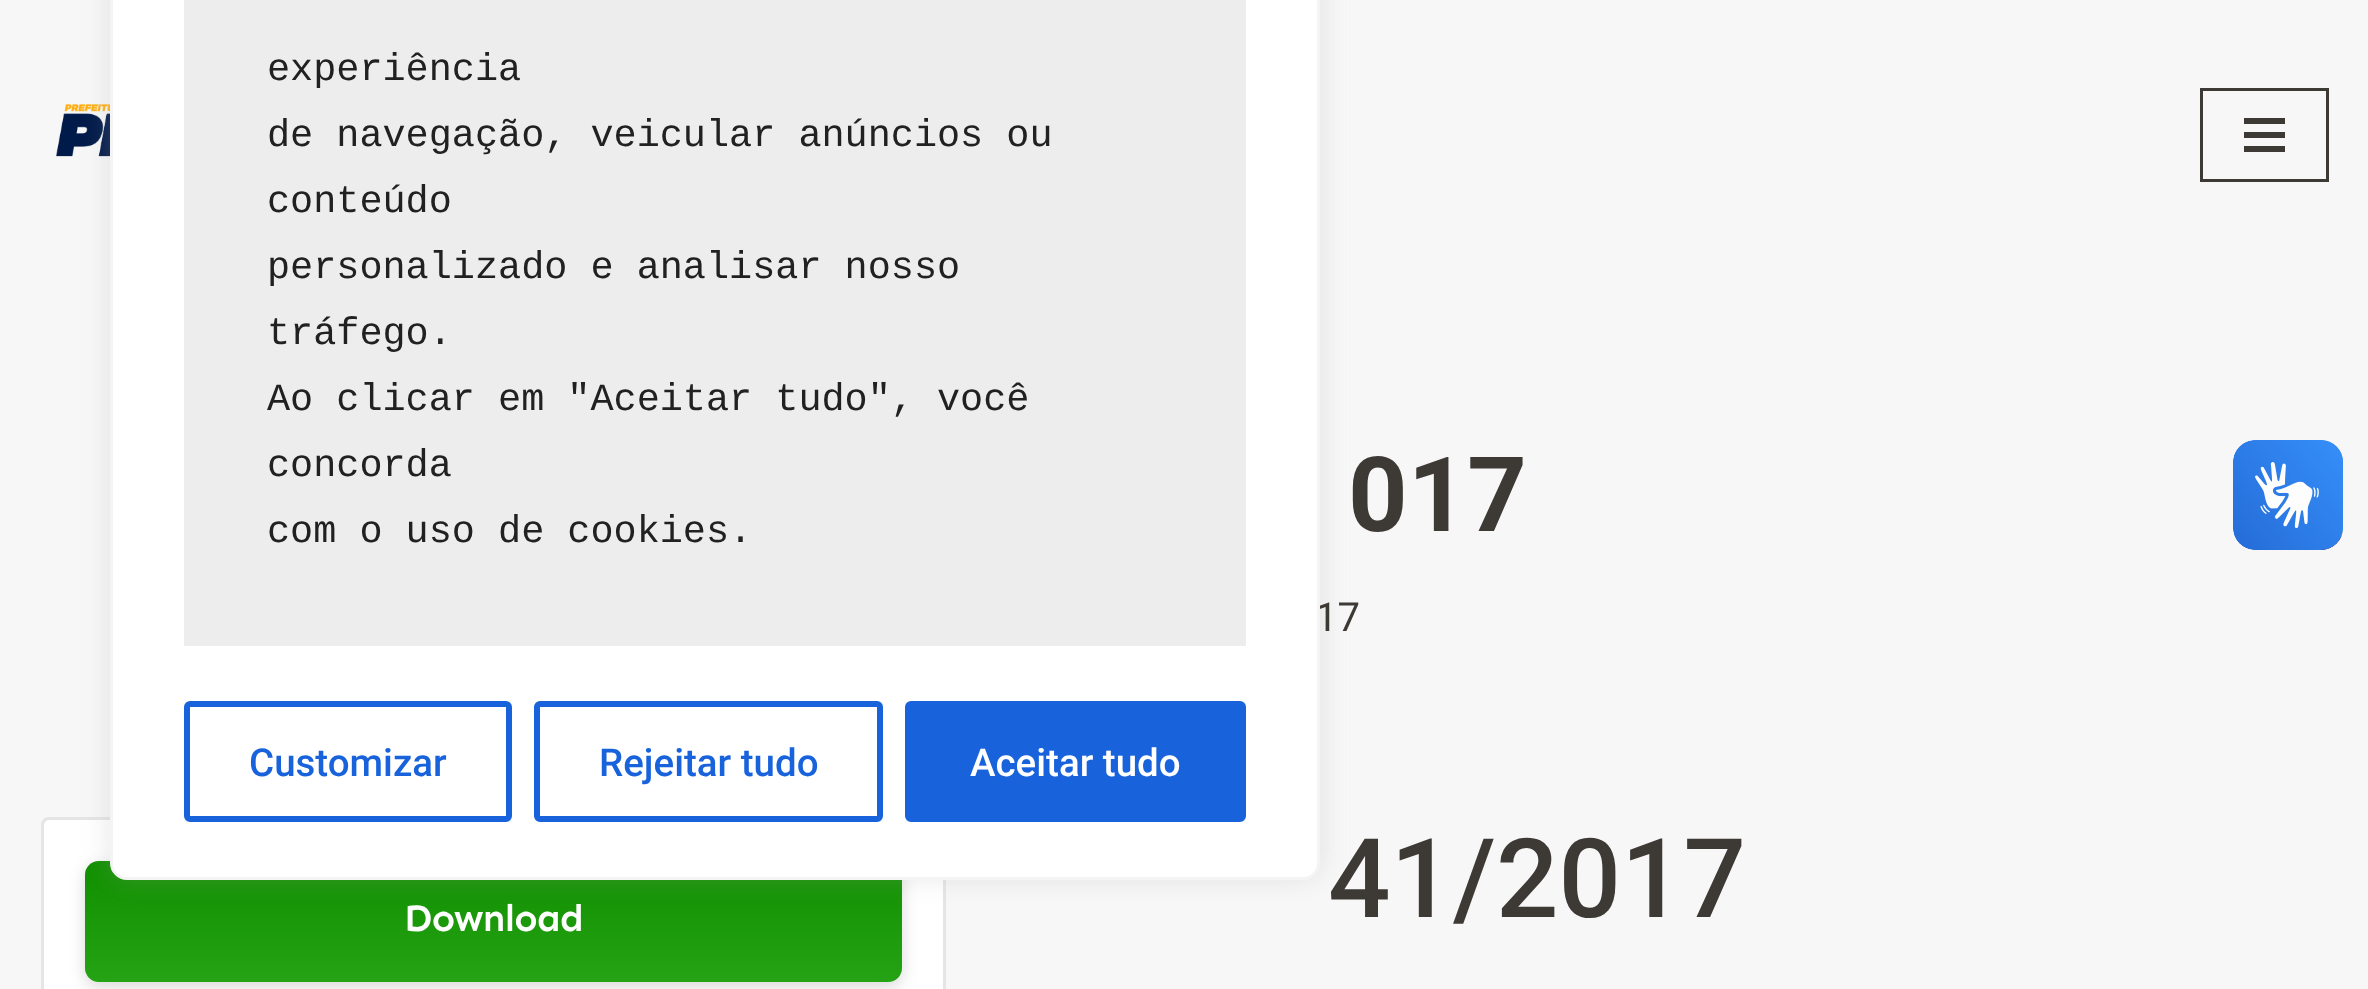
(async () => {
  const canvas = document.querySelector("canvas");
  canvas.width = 2368;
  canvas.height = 989;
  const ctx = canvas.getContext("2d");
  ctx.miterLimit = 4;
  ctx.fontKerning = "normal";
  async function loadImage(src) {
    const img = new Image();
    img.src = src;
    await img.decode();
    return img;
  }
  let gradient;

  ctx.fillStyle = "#f7f7f7";
  ctx.fillRect(0, 0, 2368, 989);
  ctx.drawImage(await loadImage("img/3.png"), 56, 104, 54, 53);
  ctx.fillStyle = "#ffffff";
  ctx.beginPath();
  ctx.roundRect(42.5, 818.5, 902, 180, 6.5);
  ctx.fill();
  ctx.strokeStyle = "#e5e5e5";
  ctx.lineWidth = 3;
  ctx.stroke();
  ctx.fillStyle = "rgba(0, 0, 0, 0.15)";
  ctx.filter = "blur(8px)";
  ctx.beginPath();
  ctx.roundRect(85, 866, 817, 121, 14);
  ctx.fill();
  ctx.filter = "none";
  ctx.fillStyle = "#129b00";
  ctx.beginPath();
  ctx.roundRect(85, 861, 817, 121, 14);
  ctx.fill();
  gradient = ctx.createLinearGradient(494, 861, 494, 982);
  gradient.addColorStop(0, "rgba(0, 0, 0, 0.08)");
  gradient.addColorStop(1, "rgba(255, 255, 255, 0.08)");
  ctx.fillStyle = gradient;
  ctx.beginPath();
  ctx.roundRect(85, 861, 817, 121, 14);
  ctx.fill();
  ctx.fillStyle = "rgba(172, 171, 171, 0.3)";
  ctx.filter = "blur(14px)";
  ctx.beginPath();
  ctx.roundRect(110, -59, 1210, 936, 17);
  ctx.fill();
  ctx.filter = "none";
  ctx.drawImage(await loadImage("img/1.png"), 2233, 440, 110, 110);
  ctx.drawImage(await loadImage("img/2.png"), 2233, 440, 110, 110);
  ctx.strokeStyle = "#3d3a36";
  ctx.strokeRect(2201.5, 89.5, 126, 91);
  for (const [x, y, w, h, color] of [
    [2244, 118, 41, 6, "#3d3a36"],
    [2244, 132, 41, 6, "#3d3a36"],
    [2244, 146, 41, 6, "#3d3a36"],
  ]) {
    ctx.fillStyle = color;
    ctx.fillRect(x, y, w, h);
  }
  ctx.font = "bold 104px Roboto";
  ctx.fillText("017", 1348, 531);
  ctx.font = "40px Roboto";
  ctx.fillText("17", 1315, 631);
  ctx.fillStyle = "#ffffff";
  ctx.beginPath();
  ctx.roundRect(111.5, -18.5, 1207, 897, 15.5);
  ctx.fill();
  ctx.strokeStyle = "#f4f4f4";
  ctx.stroke();
  ctx.fillStyle = "#1863dc";
  ctx.beginPath();
  ctx.roundRect(908, 704, 335, 115, 3);
  ctx.fill();
  ctx.strokeStyle = "#1863dc";
  ctx.lineWidth = 6;
  ctx.stroke();
  ctx.font = "500 38.5px Roboto";
  ctx.fillStyle = "#ffffff";
  ctx.fillText("Aceitar tudo", 970, 776);
  ctx.beginPath();
  ctx.roundRect(537, 704, 343, 115, 3);
  ctx.stroke();
  ctx.fillStyle = "#1863dc";
  ctx.fillText("Rejeitar tudo", 599, 776);
  ctx.beginPath();
  ctx.roundRect(187, 704, 322, 115, 3);
  ctx.stroke();
  ctx.fillText("Customizar", 249, 776);
  ctx.fillStyle = "#ededed";
  ctx.fillRect(184, 0, 1062, 646);
  ctx.font = "38.5px Liberation Mono";
  ctx.fillStyle = "#212121";
  for (const [text, x, y] of [
    ["com o uso de cookies.", 267, 542],
    ["concorda", 267, 476],
    ["Ao clicar em \"Aceitar tudo\", você", 267, 410],
    ["tráfego.", 267, 344],
    ["personalizado e analisar nosso", 267, 278],
    ["conteúdo", 267, 212],
    ["de navegação, veicular anúncios ou", 267, 146],
    ["experiência", 267, 80],
  ]) {
    ctx.fillText(text, x, y);
  }
  ctx.letterSpacing = "-0.75px";
  ctx.font = "600 38.5px Sen";
  ctx.fillStyle = "#ffffff";
  ctx.fillText("Download", 404, 931);
  ctx.letterSpacing = "0px";
  ctx.font = "500 110px Roboto";
  ctx.fillStyle = "#3d3a36";
  ctx.fillText("41/2017", 1328, 917);
})();
